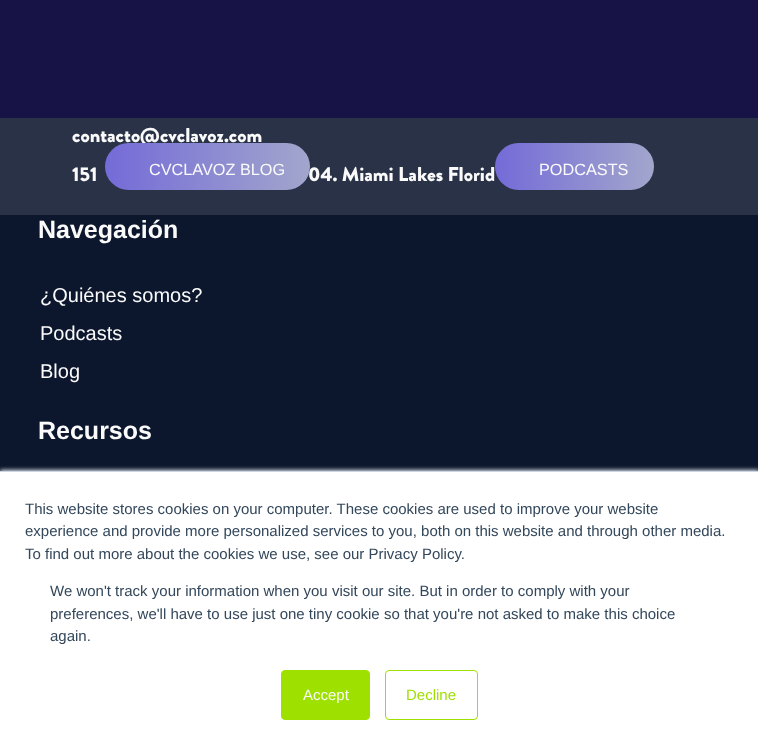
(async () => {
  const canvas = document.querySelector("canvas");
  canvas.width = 758;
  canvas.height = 752;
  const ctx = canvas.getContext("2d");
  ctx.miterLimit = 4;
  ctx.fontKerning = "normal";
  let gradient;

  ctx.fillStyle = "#0c172d";
  ctx.fillRect(0, 0, 758, 752);
  ctx.fillStyle = "#293246";
  ctx.fillRect(0, 118, 758, 97);
  ctx.fillStyle = "#171347";
  ctx.fillRect(0, 0, 758, 118);
  gradient = ctx.createLinearGradient(495, 166, 654, 166);
  gradient.addColorStop(0, "#746bd8");
  gradient.addColorStop(1, "#a2a6cc");
  ctx.fillStyle = gradient;
  ctx.beginPath();
  ctx.roundRect(495, 143, 159, 47, 23.5);
  ctx.fill();
  ctx.fillStyle = "#eaf0f6";
  ctx.filter = "blur(2px)";
  ctx.beginPath();
  ctx.rect(0, 470, 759, 281);
  ctx.fill();
  ctx.filter = "none";
  ctx.fillStyle = "#ffffff";
  ctx.fillRect(0, 472, 758, 280);
  ctx.fillStyle = "#cbd6e2";
  ctx.fillRect(0, 471, 758, 1);
  ctx.fillStyle = "#9ee101";
  ctx.beginPath();
  ctx.roundRect(281.5, 670.5, 88, 49, 3.5);
  ctx.fill();
  ctx.strokeStyle = "#9ee101";
  ctx.stroke();
  ctx.beginPath();
  ctx.roundRect(385.5, 670.5, 92, 49, 3.5);
  ctx.stroke();
  ctx.font = "900 20px Brandon Grotesque";
  ctx.fillStyle = "#fafafb";
  for (const [text, x, y] of [
    ["contacto@cvclavoz.com", 72, 142],
    ["151", 72, 181],
    ["04. Miami Lakes Florid", 308, 181],
  ]) {
    ctx.fillText(text, x, y);
  }
  ctx.font = "bold 25px Liberation Sans";
  ctx.fillText("Navegación", 38, 238);
  ctx.font = "20px Liberation Sans";
  for (const [text, x, y] of [
    ["¿Quiénes somos?", 40, 302],
    ["Podcasts", 40, 340],
    ["Blog", 40, 378],
  ]) {
    ctx.fillText(text, x, y);
  }
  ctx.font = "bold 25px Liberation Sans";
  ctx.fillText("Recursos", 38, 439);
  gradient = ctx.createLinearGradient(105, 166, 310, 166);
  gradient.addColorStop(0, "#746bd8");
  gradient.addColorStop(1, "#a2a6cc");
  ctx.fillStyle = gradient;
  ctx.beginPath();
  ctx.roundRect(105, 143, 205, 47, 23.5);
  ctx.fill();
  ctx.font = "16.25px Liberation Sans";
  ctx.fillStyle = "#fafafb";
  ctx.fillText("CVCLAVOZ BLOG", 149, 175);
  ctx.fillText("PODCASTS", 539, 175);
  ctx.font = "15px Liberation Sans";
  ctx.fillStyle = "#33475b";
  for (const [text, x, y] of [
    ["This website stores cookies on your computer. These cookies are used to improve your website", 25, 514],
    ["experience and provide more personalized services to you, both on this website and through other media.", 25, 536],
    ["To find out more about the cookies we use, see our Privacy Policy.", 25, 559],
    ["We won't track your information when you visit our site. But in order to comply with your", 50, 596],
    ["preferences, we'll have to use just one tiny cookie so that you're not asked to make this choice", 50, 619],
    ["again.", 50, 641],
  ]) {
    ctx.fillText(text, x, y);
  }
  ctx.fillStyle = "#fafafb";
  ctx.fillText("Accept", 303, 700);
  ctx.fillStyle = "#9ee101";
  ctx.fillText("Decline", 406, 700);
})();
